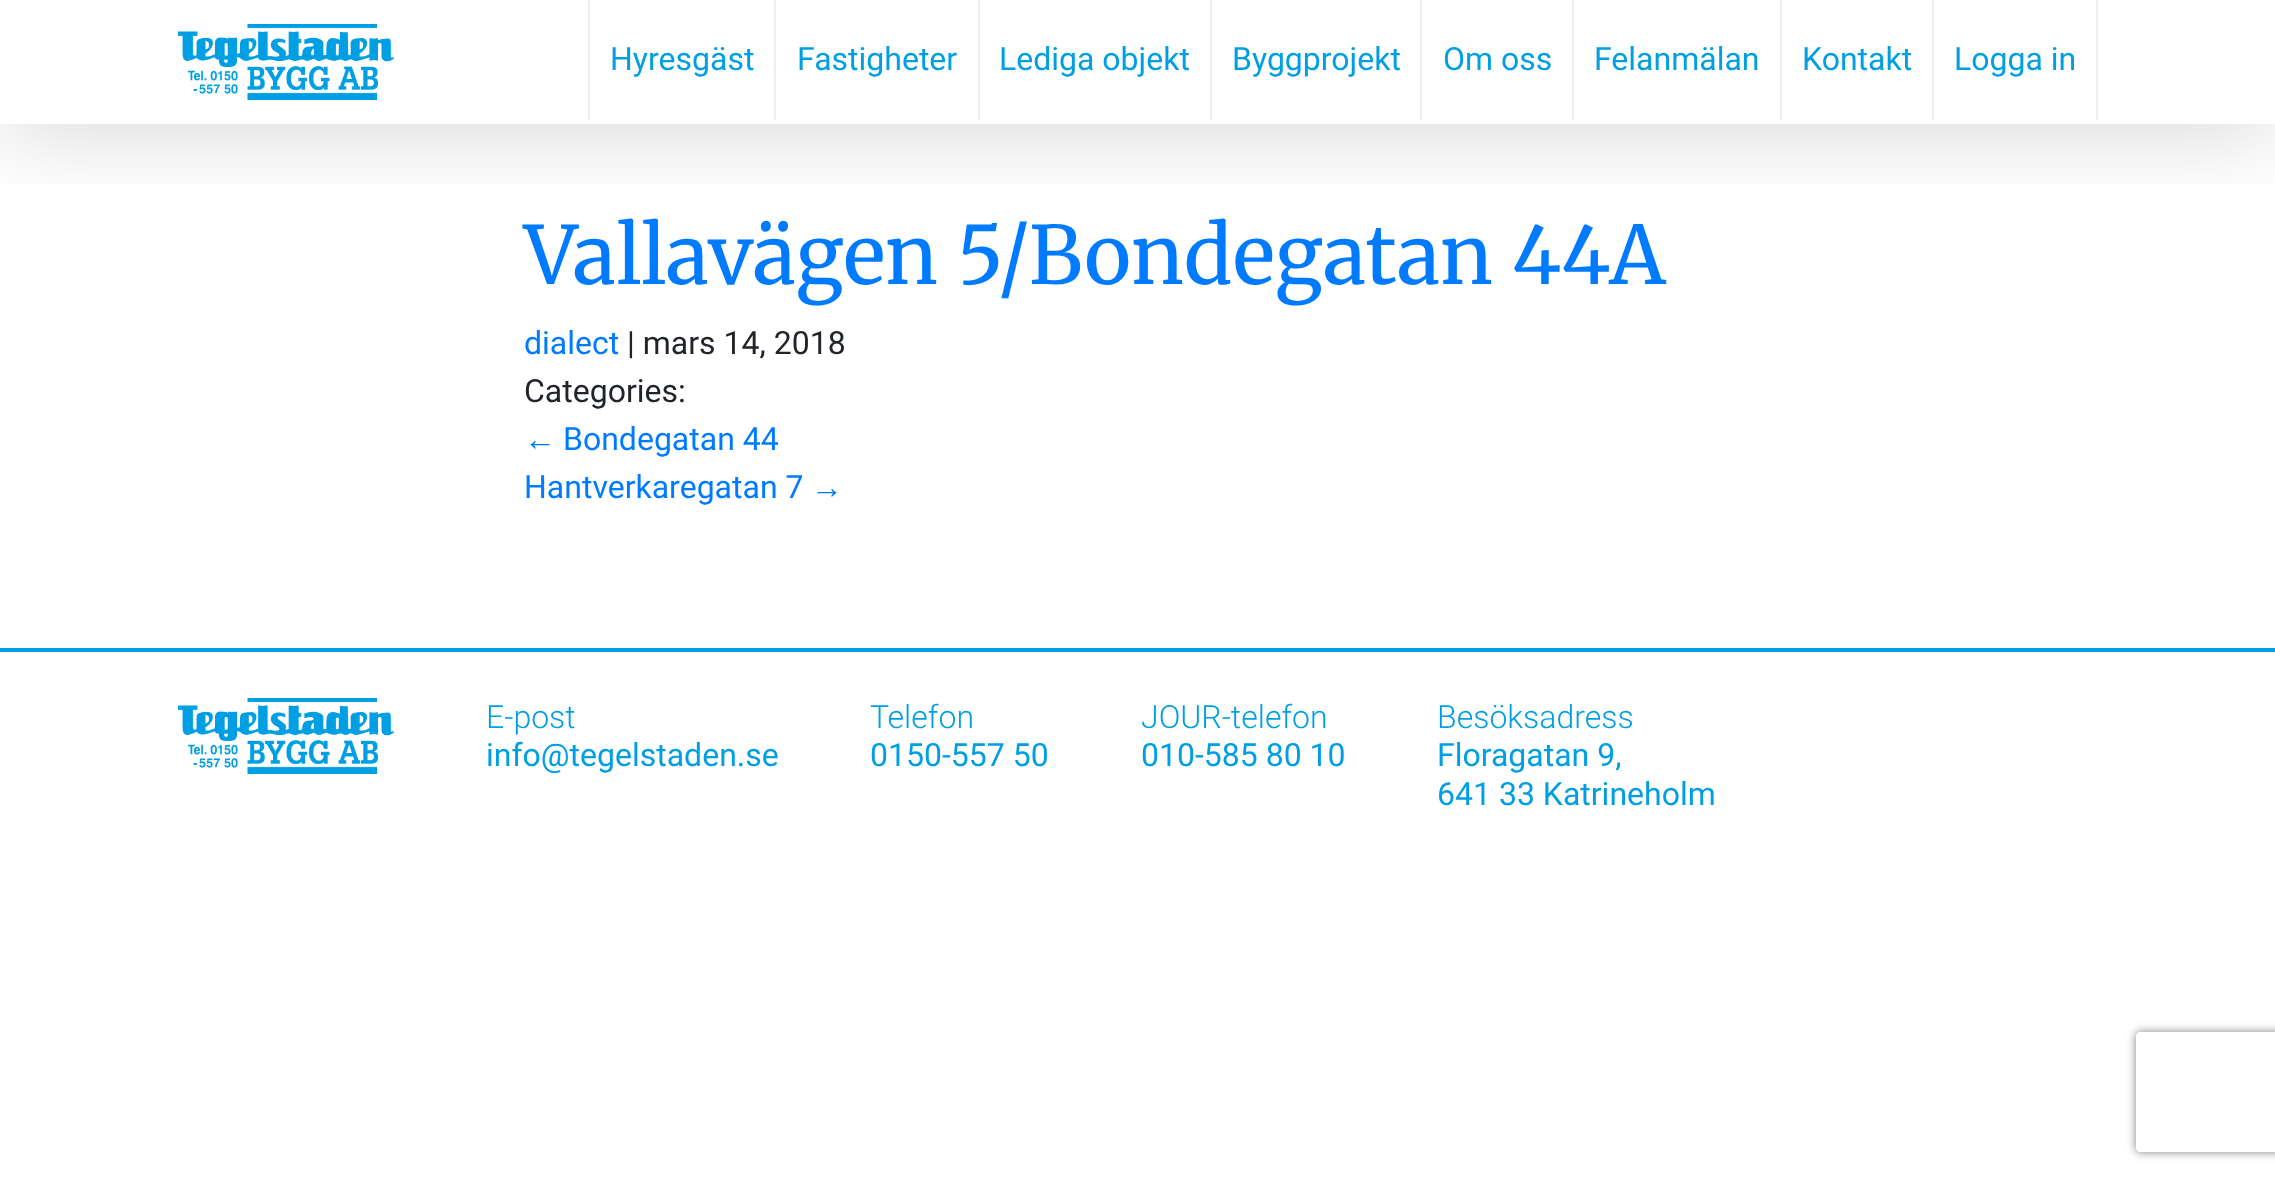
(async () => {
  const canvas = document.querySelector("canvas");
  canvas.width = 2275;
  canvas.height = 1180;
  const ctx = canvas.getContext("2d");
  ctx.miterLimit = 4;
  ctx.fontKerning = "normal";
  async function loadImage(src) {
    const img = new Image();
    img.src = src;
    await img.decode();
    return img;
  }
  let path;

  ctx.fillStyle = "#ffffff";
  ctx.fillRect(0, 0, 2275, 1180);
  ctx.save();
  ctx.beginPath();
  ctx.rect(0, 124, 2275, 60);
  ctx.clip();
  ctx.fillStyle = "rgba(0, 0, 0, 0.15)";
  ctx.filter = "blur(45px)";
  ctx.beginPath();
  ctx.rect(0, 10, 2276, 124);
  ctx.fill();
  ctx.filter = "none";
  ctx.restore();
  ctx.drawImage(await loadImage("img/1.png"), 178, 24, 216, 76);
  for (const [x, y, w, h, color] of [
    [588, 0, 2, 120, "#eeeeee"],
    [774, 0, 2, 120, "#eeeeee"],
    [978, 0, 2, 120, "#eeeeee"],
    [1210, 0, 2, 120, "#eeeeee"],
    [1420, 0, 2, 120, "#eeeeee"],
    [1572, 0, 2, 120, "#eeeeee"],
    [1780, 0, 2, 120, "#eeeeee"],
    [2096, 0, 2, 120, "#eeeeee"],
    [1932, 0, 2, 120, "#eeeeee"],
    [0, 648, 2275, 4, "#009fe4"],
  ]) {
    ctx.fillStyle = color;
    ctx.fillRect(x, y, w, h);
  }
  ctx.drawImage(await loadImage("img/2.png"), 178, 698, 216, 76);
  ctx.save();
  path = new Path2D("M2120 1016H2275V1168H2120ZM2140 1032H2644C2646 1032 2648 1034 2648 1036V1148C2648 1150 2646 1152 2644 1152H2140C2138 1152 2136 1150 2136 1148V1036C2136 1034 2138 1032 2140 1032Z");
  ctx.clip(path, "evenodd");
  ctx.fillStyle = "#808080";
  ctx.filter = "blur(5px)";
  ctx.beginPath();
  ctx.roundRect(2136, 1032, 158, 120, 4);
  ctx.fill();
  ctx.filter = "none";
  ctx.restore();
  ctx.font = "32px Roboto";
  for (const [text, x, y] of [
    ["Hyresgäst", 610, 70],
    ["Fastigheter", 797, 70],
    ["Lediga objekt", 999, 70],
    ["Byggprojekt", 1232, 70],
    ["Om oss", 1443, 70],
    ["Felanmälan", 1594, 70],
    ["Kontakt", 1802, 70],
    ["Logga in", 1954, 70],
  ]) {
    ctx.fillText(text, x, y);
  }
  ctx.font = "300 80px Merriweather";
  ctx.fillStyle = "#007bff";
  ctx.fillText("Vallavägen 5/Bondegatan 44A", 524, 284);
  ctx.font = "32px Roboto";
  ctx.fillText("dialect", 524, 354);
  ctx.fillStyle = "#212529";
  ctx.fillText("| mars 14, 2018", 627, 354);
  ctx.fillText("Categories:", 524, 402);
  ctx.font = "32px Liberation Sans";
  ctx.fillStyle = "#007bff";
  ctx.fillText("←", 524, 450);
  ctx.font = "32px Roboto";
  ctx.fillText("Bondegatan 44", 563, 450);
  ctx.fillText("Hantverkaregatan 7", 524, 498);
  ctx.font = "32px Liberation Sans";
  ctx.fillText("→", 811, 498);
  ctx.font = "300 32px Roboto";
  ctx.fillStyle = "#009fe4";
  ctx.fillText("E-post", 486, 728);
  ctx.font = "32px Roboto";
  ctx.fillText("info@tegelstaden.se", 486, 766);
  ctx.font = "300 32px Roboto";
  ctx.fillText("Telefon", 870, 728);
  ctx.font = "32px Roboto";
  ctx.fillText("0150-557 50", 870, 766);
  ctx.font = "300 32px Roboto";
  ctx.fillText("JOUR-telefon", 1141, 728);
  ctx.font = "32px Roboto";
  ctx.fillText("010-585 80 10", 1141, 766);
  ctx.font = "300 32px Roboto";
  ctx.fillText("Besöksadress", 1437, 728);
  ctx.font = "32px Roboto";
  ctx.fillText("Floragatan 9,", 1437, 766);
  ctx.fillText("641 33 Katrineholm", 1437, 805);
})();
